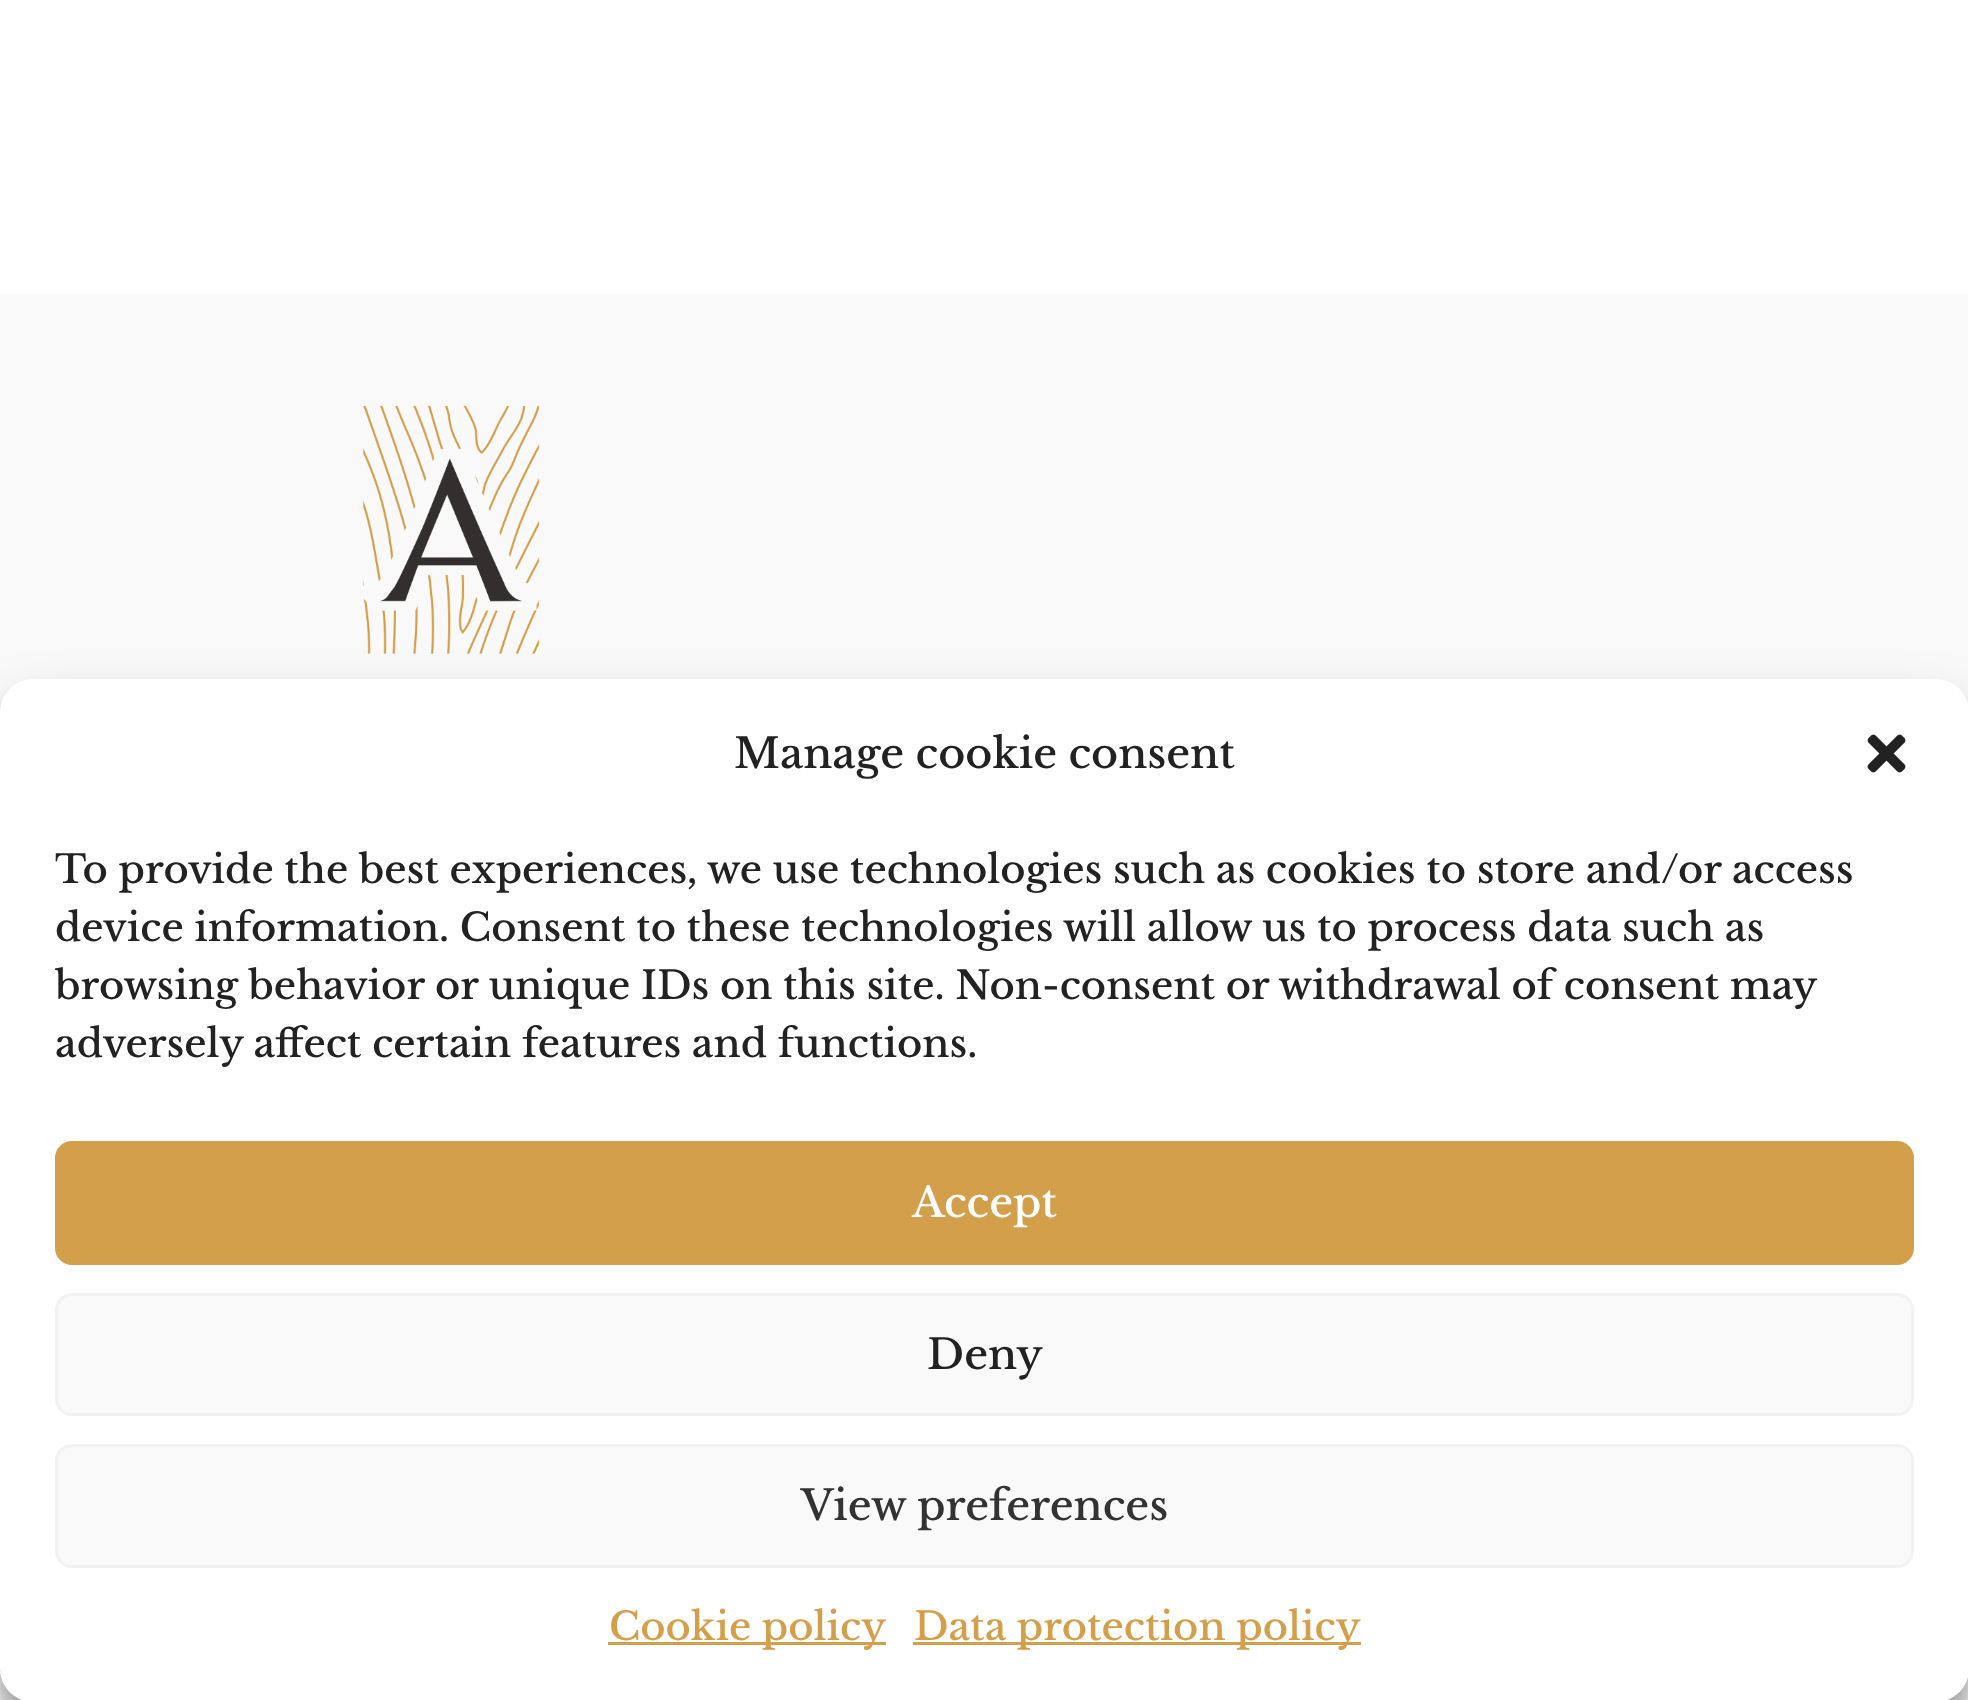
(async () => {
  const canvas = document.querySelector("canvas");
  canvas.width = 1968;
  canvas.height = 1700;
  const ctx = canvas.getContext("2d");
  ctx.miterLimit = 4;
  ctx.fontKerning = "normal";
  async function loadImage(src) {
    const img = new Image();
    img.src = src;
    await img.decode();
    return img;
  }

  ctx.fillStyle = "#ffffff";
  ctx.fillRect(0, 0, 1968, 1700);
  ctx.fillStyle = "#f9f9f9";
  ctx.fillRect(0, 294, 1968, 1406);
  ctx.drawImage(await loadImage("img/1.png"), 362, 405, 178, 249);
  ctx.fillStyle = "rgba(0, 0, 0, 0.23)";
  ctx.filter = "blur(8px)";
  ctx.beginPath();
  ctx.roundRect(0, 696, 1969, 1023, 33);
  ctx.fill();
  ctx.filter = "none";
  ctx.fillStyle = "rgba(0, 0, 0, 0.19)";
  ctx.filter = "blur(27.5px)";
  ctx.beginPath();
  ctx.roundRect(0, 707, 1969, 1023, 33);
  ctx.fill();
  ctx.filter = "none";
  ctx.fillStyle = "#ffffff";
  ctx.beginPath();
  ctx.roundRect(0, 679, 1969, 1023, 33);
  ctx.fill();
  ctx.drawImage(await loadImage("img/2.png"), 1867, 734, 39, 39);
  ctx.fillStyle = "#d39f4b";
  ctx.beginPath();
  ctx.roundRect(56.5, 1142.5, 1856, 121, 15.5);
  ctx.fill();
  ctx.strokeStyle = "#d39f4b";
  ctx.lineWidth = 3;
  ctx.stroke();
  ctx.fillStyle = "#f9f9f9";
  ctx.beginPath();
  ctx.roundRect(56.5, 1294.5, 1856, 120, 15.5);
  ctx.fill();
  ctx.strokeStyle = "#f2f2f2";
  ctx.stroke();
  ctx.beginPath();
  ctx.roundRect(56.5, 1445.5, 1856, 121, 15.5);
  ctx.fill();
  ctx.stroke();
  ctx.fillStyle = "#d39f4b";
  ctx.fillRect(608, 1642, 278, 3);
  ctx.fillRect(913, 1642, 448, 3);
  ctx.font = "500 41.25px Libre Baskerville";
  ctx.fillStyle = "#222222";
  ctx.fillText("Manage cookie consent", 734, 768);
  ctx.font = "500 38.5px Libre Baskerville";
  for (const [text, x, y] of [
    ["To provide the best experiences, we use technologies such as cookies to store and/or access", 55, 883],
    ["device information. Consent to these technologies will allow us to process data such as", 55, 941],
    ["browsing behavior or unique IDs on this site. Non-consent or withdrawal of consent may", 55, 999],
    ["adversely affect certain features and functions.", 55, 1057],
  ]) {
    ctx.fillText(text, x, y);
  }
  ctx.font = "500 41.25px Libre Baskerville";
  ctx.fillStyle = "#ffffff";
  ctx.fillText("Accept", 912, 1217);
  ctx.fillStyle = "#222222";
  ctx.fillText("Deny", 927, 1369);
  ctx.fillStyle = "#333333";
  ctx.fillText("View preferences", 801, 1520);
  ctx.font = "500 38.5px Libre Baskerville";
  ctx.fillStyle = "#d39f4b";
  ctx.fillText("Cookie policy", 609, 1640);
  ctx.fillText("Data protection policy", 914, 1640);
})();
